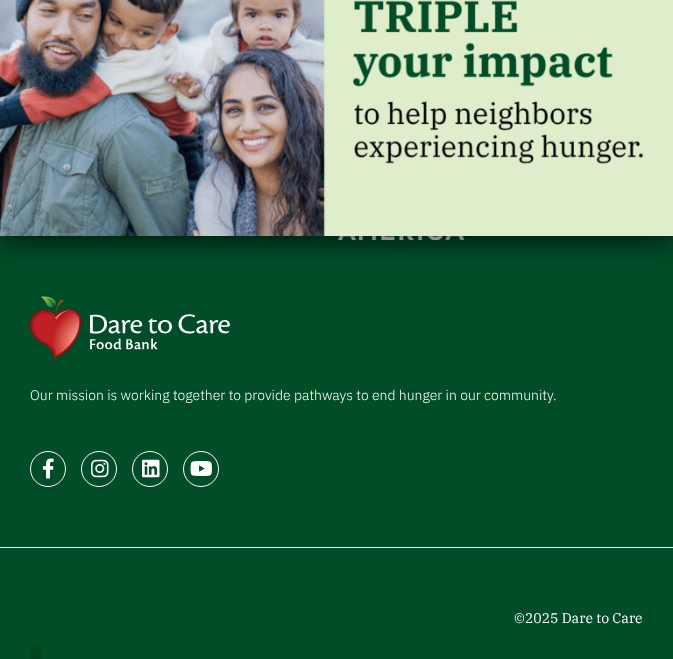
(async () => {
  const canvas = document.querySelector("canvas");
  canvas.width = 673;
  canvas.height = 659;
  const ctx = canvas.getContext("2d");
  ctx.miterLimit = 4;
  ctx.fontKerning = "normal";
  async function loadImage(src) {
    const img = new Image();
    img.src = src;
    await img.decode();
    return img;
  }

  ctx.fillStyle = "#004d28";
  ctx.fillRect(0, 0, 673, 659);
  ctx.drawImage(await loadImage("img/2.png"), 337, 236, 128, 4);
  ctx.fillStyle = "#020202";
  ctx.filter = "blur(15px)";
  ctx.beginPath();
  ctx.rect(0, -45, 673, 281);
  ctx.fill();
  ctx.filter = "none";
  ctx.drawImage(await loadImage("img/1.png"), 0, 0, 673, 236);
  ctx.fillStyle = "#ffffff";
  ctx.fillRect(0, 547, 673, 1);
  ctx.drawImage(await loadImage("img/3.png"), 30, 296, 200, 63);
  ctx.beginPath();
  ctx.arc(48, 469, 17.5, 0, Math.PI * 2);
  ctx.strokeStyle = "#ffffff";
  ctx.stroke();
  ctx.drawImage(await loadImage("img/4.png"), 42, 458, 12, 21);
  ctx.beginPath();
  ctx.arc(99, 469, 17.5, 0, Math.PI * 2);
  ctx.stroke();
  ctx.drawImage(await loadImage("img/5.png"), 91, 459, 18, 19);
  ctx.beginPath();
  ctx.arc(150, 469, 17.5, 0, Math.PI * 2);
  ctx.stroke();
  ctx.drawImage(await loadImage("img/6.png"), 142, 459, 18, 19);
  ctx.beginPath();
  ctx.arc(201, 469, 17.5, 0, Math.PI * 2);
  ctx.stroke();
  ctx.drawImage(await loadImage("img/7.png"), 190, 461, 22, 15);
  ctx.fillStyle = "#004323";
  ctx.beginPath();
  ctx.roundRect(30, 647, 12, 12, [5, 5, 0, 0]);
  ctx.fill();
  ctx.font = "300 14px IBM Plex Sans";
  ctx.fillStyle = "#ffffff";
  ctx.fillText("Our mission is working together to provide pathways to end hunger in our community.", 30, 400);
  ctx.font = "14px IBM Plex Serif";
  ctx.fillText("©2025 Dare to Care", 514, 623);
})();
